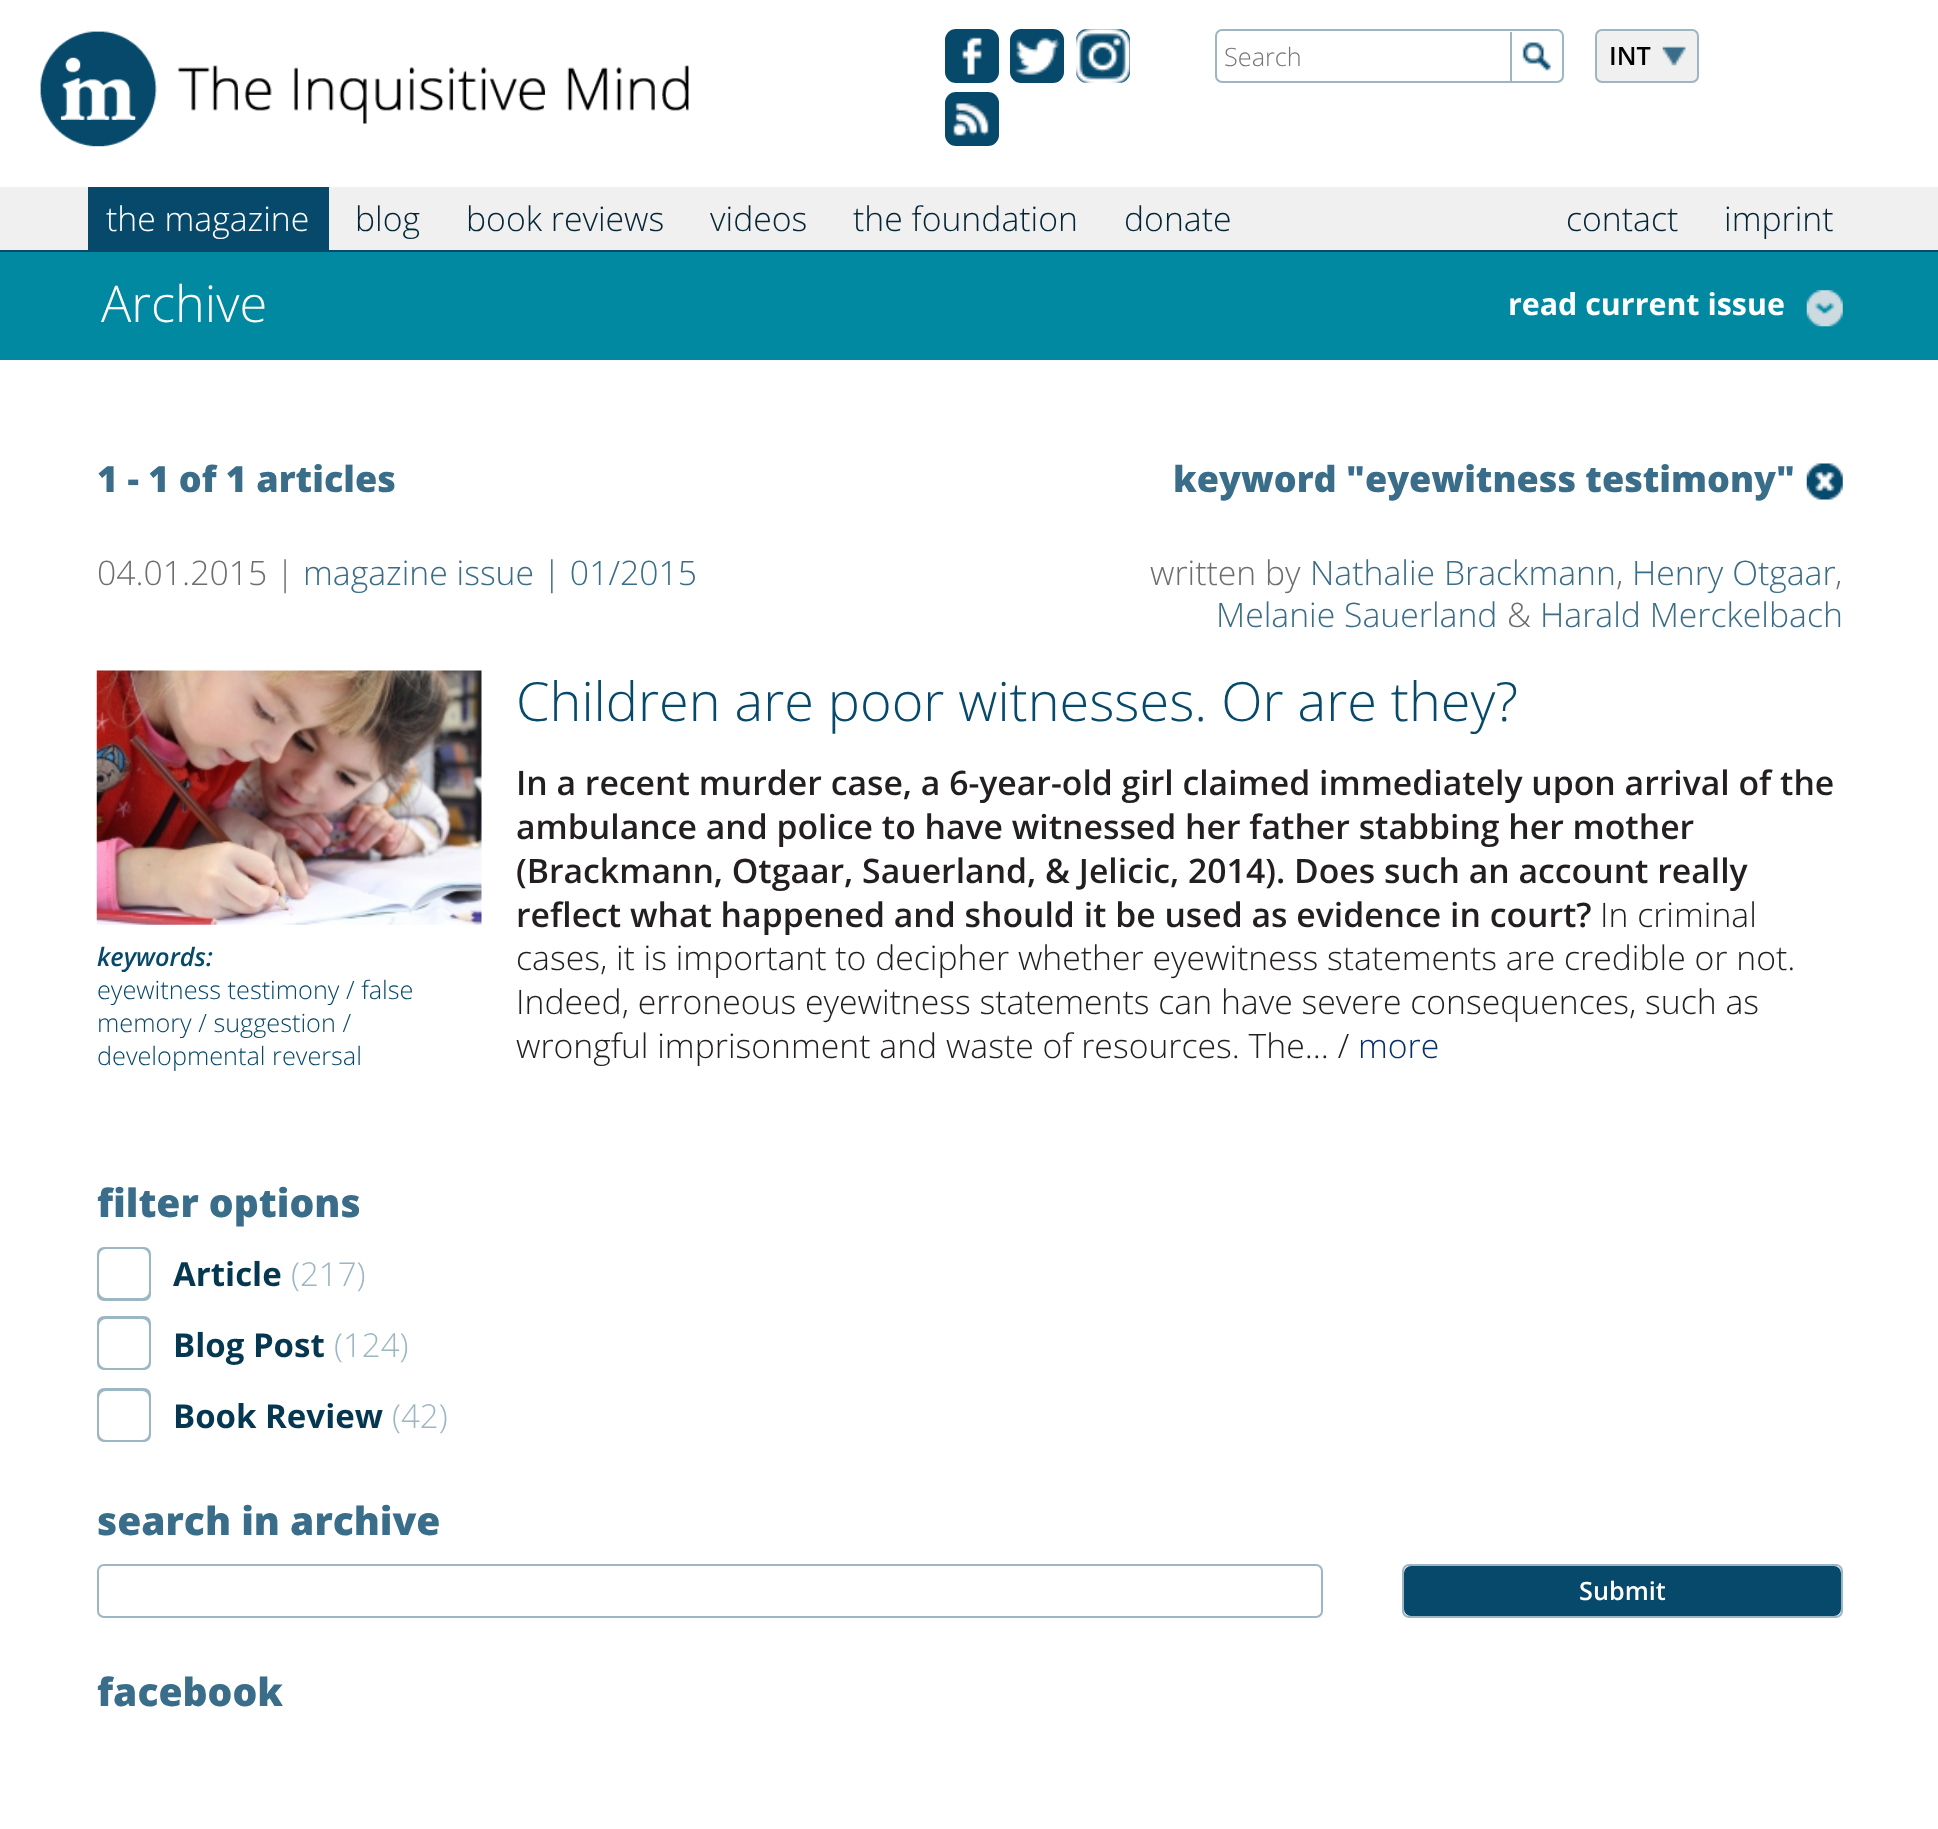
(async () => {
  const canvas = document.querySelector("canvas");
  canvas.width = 1938;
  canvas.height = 1829;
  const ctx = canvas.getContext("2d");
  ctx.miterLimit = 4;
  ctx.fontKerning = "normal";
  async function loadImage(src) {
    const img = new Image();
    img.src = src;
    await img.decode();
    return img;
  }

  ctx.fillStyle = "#ffffff";
  ctx.fillRect(0, 0, 1938, 1829);
  ctx.drawImage(await loadImage("img/1.png"), 40, 31, 649, 116);
  ctx.fillStyle = "#07496b";
  ctx.beginPath();
  ctx.roundRect(945, 29, 54, 54, 11);
  ctx.fill();
  ctx.drawImage(await loadImage("img/2.png"), 962, 37, 20, 38);
  ctx.beginPath();
  ctx.roundRect(1010, 29, 54, 54, 11);
  ctx.fill();
  ctx.drawImage(await loadImage("img/3.png"), 1014, 37, 46, 38);
  ctx.beginPath();
  ctx.roundRect(1076, 29, 54, 54, 11);
  ctx.fill();
  ctx.drawImage(await loadImage("img/4.png"), 1076, 29, 54, 54);
  ctx.beginPath();
  ctx.roundRect(945, 92, 54, 54, 11);
  ctx.fill();
  ctx.drawImage(await loadImage("img/5.png"), 953, 103, 36, 33);
  ctx.beginPath();
  ctx.roundRect(1216, 30, 347, 52, 6);
  ctx.strokeStyle = "#9cb6c4";
  ctx.lineWidth = 2;
  ctx.stroke();
  ctx.fillStyle = "#9cb6c4";
  ctx.fillRect(1510, 32, 2, 49);
  ctx.drawImage(await loadImage("img/6.png"), 1522, 42, 29, 29);
  ctx.fillStyle = "#f0f0f0";
  ctx.beginPath();
  ctx.roundRect(1595, 29, 104, 54, 7);
  ctx.fill();
  ctx.drawImage(await loadImage("img/7.png"), 1662, 46, 24, 20);
  ctx.beginPath();
  ctx.roundRect(1596, 30, 102, 52, 6);
  ctx.stroke();
  for (const [x, y, w, h, color] of [
    [0, 187, 1938, 63, "#f0f0f0"],
    [0, 250, 1938, 2, "#07496b"],
    [88, 187, 241, 63, "#07496b"],
    [0, 252, 1938, 108, "#0089a1"],
  ]) {
    ctx.fillStyle = color;
    ctx.fillRect(x, y, w, h);
  }
  ctx.drawImage(await loadImage("img/8.png"), 1806, 290, 37, 37);
  ctx.drawImage(await loadImage("img/9.png"), 1806, 463, 37, 37);
  ctx.drawImage(await loadImage("img/10.png"), 96, 670, 386, 255);
  ctx.fillStyle = "#9cb6c4";
  ctx.beginPath();
  ctx.roundRect(97, 1247, 54, 54, 7);
  ctx.fill();
  ctx.fillStyle = "#ffffff";
  ctx.beginPath();
  ctx.roundRect(99, 1249, 50, 49, 7);
  ctx.fill();
  ctx.fillStyle = "#9cb6c4";
  ctx.beginPath();
  ctx.roundRect(97, 1316, 54, 54, 7);
  ctx.fill();
  ctx.fillStyle = "#ffffff";
  ctx.beginPath();
  ctx.roundRect(99, 1319, 50, 49, 7);
  ctx.fill();
  ctx.fillStyle = "#9cb6c4";
  ctx.beginPath();
  ctx.roundRect(97, 1388, 54, 54, 7);
  ctx.fill();
  ctx.fillStyle = "#ffffff";
  ctx.beginPath();
  ctx.roundRect(99, 1391, 50, 49, 7);
  ctx.fill();
  ctx.beginPath();
  ctx.roundRect(98, 1565, 1224, 52, 6);
  ctx.stroke();
  ctx.beginPath();
  ctx.roundRect(1403, 1565, 439, 52, 6);
  ctx.stroke();
  ctx.fillStyle = "#07496b";
  ctx.beginPath();
  ctx.roundRect(1404, 1566, 437, 50, 7);
  ctx.fill();
  ctx.font = "300 25.25px Open Sans";
  ctx.fillStyle = "#757575";
  ctx.fillText("Search", 1224, 66);
  ctx.font = "600 25.25px Open Sans";
  ctx.fillStyle = "#000000";
  ctx.fillText("INT", 1609, 65);
  ctx.font = "300 33.75px Open Sans";
  ctx.fillStyle = "#ffffff";
  ctx.fillText("the magazine", 106, 231);
  ctx.fillStyle = "#042536";
  for (const [text, x, y] of [
    ["blog", 355, 231],
    ["book reviews", 466, 231],
    ["videos", 710, 231],
    ["the foundation", 853, 231],
    ["donate", 1124, 231],
    ["contact", 1566, 231],
    ["imprint", 1724, 231],
  ]) {
    ctx.fillText(text, x, y);
  }
  ctx.font = "300 50.5px Open Sans";
  ctx.fillStyle = "#ffffff";
  ctx.fillText("Archive", 101, 322);
  ctx.font = "bold 30.4px Open Sans";
  ctx.fillText("read current issue", 1508, 315);
  ctx.font = "800 36px Open Sans";
  ctx.fillStyle = "#396d89";
  ctx.fillText("1 - 1 of 1 articles", 97, 492);
  ctx.fillText("keyword \"eyewitness testimony\"", 1173, 492);
  ctx.font = "300 33.75px Open Sans";
  ctx.fillStyle = "#6e6e6e";
  ctx.fillText("04.01.2015 |", 97, 585);
  ctx.fillStyle = "#396d89";
  ctx.fillText("magazine issue | 01/2015", 303, 585);
  ctx.fillStyle = "#6e6e6e";
  ctx.fillText("written by", 1150, 585);
  ctx.fillStyle = "#396d89";
  ctx.fillText("Nathalie Brackmann", 1310, 585);
  ctx.fillStyle = "#6e6e6e";
  ctx.fillText(",", 1616, 585);
  ctx.fillStyle = "#396d89";
  ctx.fillText("Henry Otgaar", 1632, 585);
  ctx.fillStyle = "#6e6e6e";
  ctx.fillText(",", 1835, 585);
  ctx.fillStyle = "#396d89";
  ctx.fillText("Melanie Sauerland", 1216, 627);
  ctx.fillStyle = "#6e6e6e";
  ctx.fillText("&", 1507, 627);
  ctx.fillStyle = "#396d89";
  ctx.fillText("Harald Merckelbach", 1540, 627);
  ctx.font = "italic 600 25.25px Open Sans";
  ctx.fillStyle = "#07496b";
  ctx.fillText("keywords:", 97, 966);
  ctx.font = "300 25.25px Open Sans";
  for (const [text, x, y] of [
    ["eyewitness testimony / false", 97, 999],
    ["memory / suggestion /", 97, 1032],
    ["developmental reversal", 97, 1065],
  ]) {
    ctx.fillText(text, x, y);
  }
  ctx.font = "300 54px Open Sans";
  ctx.fillText("Children are poor witnesses. Or are they?", 516, 721);
  ctx.font = "600 33.75px Open Sans";
  ctx.fillStyle = "#231f20";
  for (const [text, x, y] of [
    ["In a recent murder case, a 6-year-old girl claimed immediately upon arrival of the", 516, 795],
    ["ambulance and police to have witnessed her father stabbing her mother", 516, 839],
    ["(Brackmann, Otgaar, Sauerland, & Jelicic, 2014). Does such an account really", 516, 883],
    ["reflect what happened and should it be used as evidence in court?", 516, 927],
  ]) {
    ctx.fillText(text, x, y);
  }
  ctx.font = "300 33.75px Open Sans";
  for (const [text, x, y] of [
    ["In criminal", 1600, 927],
    ["cases, it is important to decipher whether eyewitness statements are credible or not.", 516, 970],
    ["Indeed, erroneous eyewitness statements can have severe consequences, such as", 516, 1014],
    ["wrongful imprisonment and waste of resources. The... /", 516, 1058],
  ]) {
    ctx.fillText(text, x, y);
  }
  ctx.fillStyle = "#072f6b";
  ctx.fillText("more", 1358, 1058);
  ctx.font = "800 39px Open Sans";
  ctx.fillStyle = "#396d89";
  ctx.fillText("filter options", 97, 1217);
  ctx.font = "bold 33px Open Sans";
  ctx.fillStyle = "#053750";
  ctx.fillText("Article", 173, 1286);
  ctx.font = "300 33px Open Sans";
  ctx.fillStyle = "#9cb6c4";
  ctx.fillText("(217)", 291, 1286);
  ctx.font = "bold 33px Open Sans";
  ctx.fillStyle = "#053750";
  ctx.fillText("Blog Post", 173, 1357);
  ctx.font = "300 33px Open Sans";
  ctx.fillStyle = "#9cb6c4";
  ctx.fillText("(124)", 334, 1357);
  ctx.font = "bold 33px Open Sans";
  ctx.fillStyle = "#053750";
  ctx.fillText("Book Review", 173, 1428);
  ctx.font = "300 33px Open Sans";
  ctx.fillStyle = "#9cb6c4";
  ctx.fillText("(42)", 392, 1428);
  ctx.font = "800 39px Open Sans";
  ctx.fillStyle = "#396d89";
  ctx.fillText("search in archive", 97, 1535);
  ctx.font = "600 25.25px Open Sans";
  ctx.fillStyle = "#ffffff";
  ctx.fillText("Submit", 1579, 1600);
  ctx.font = "800 39px Open Sans";
  ctx.fillStyle = "#396d89";
  ctx.fillText("facebook", 97, 1706);
})();
